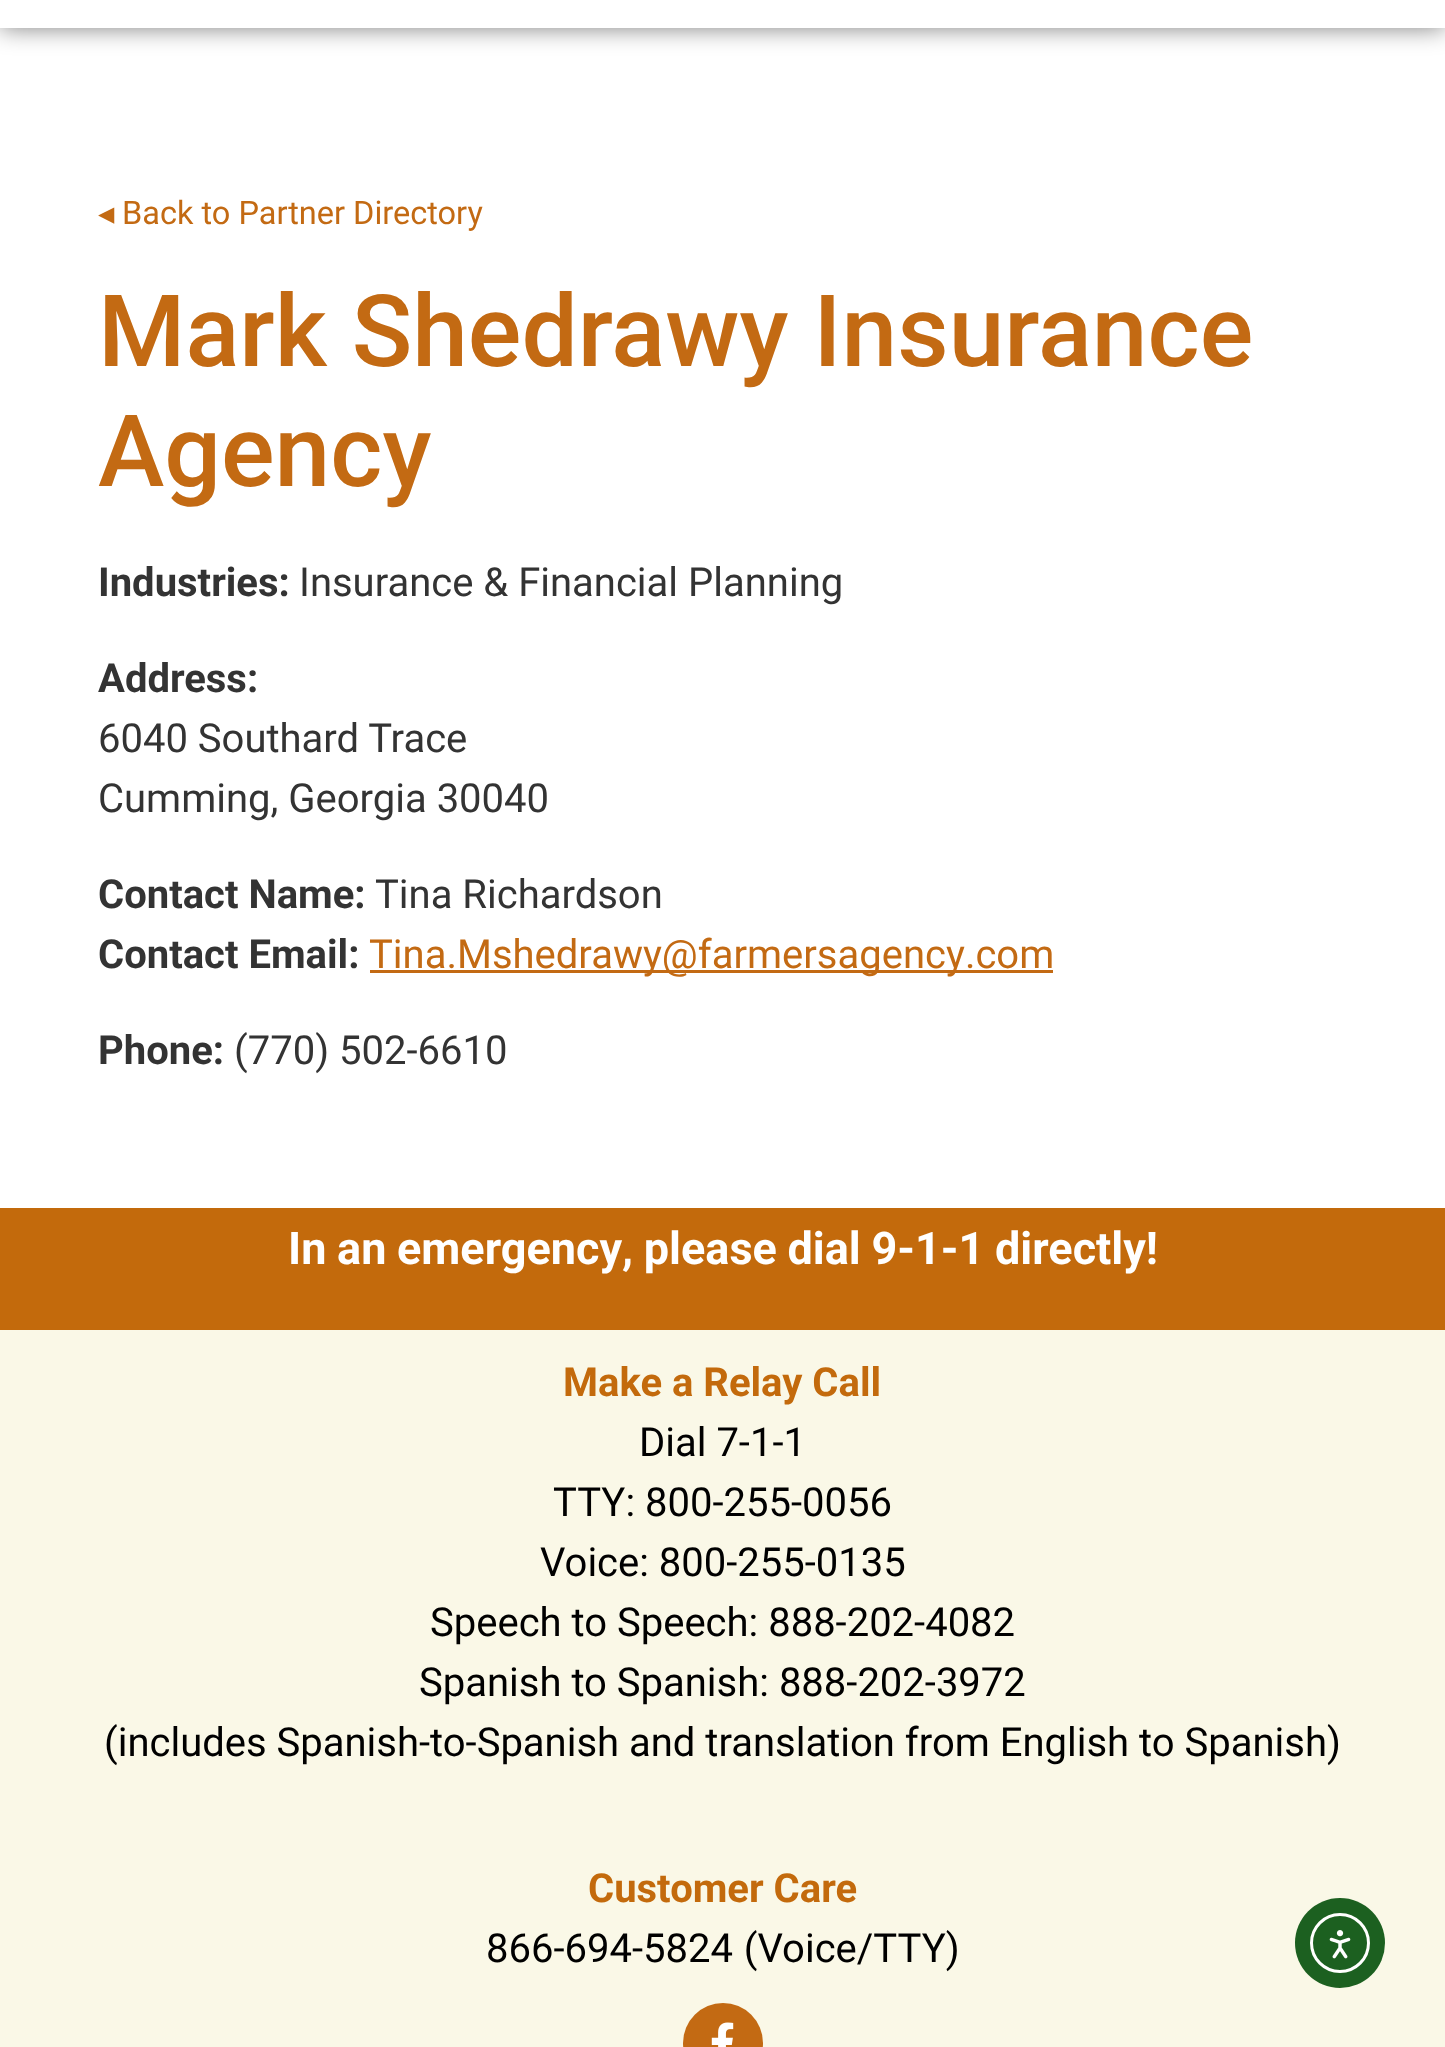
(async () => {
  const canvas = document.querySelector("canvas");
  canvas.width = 1445;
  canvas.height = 2047;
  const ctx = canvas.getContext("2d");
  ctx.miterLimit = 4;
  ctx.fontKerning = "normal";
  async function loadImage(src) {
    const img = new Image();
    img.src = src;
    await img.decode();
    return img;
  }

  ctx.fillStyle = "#ffffff";
  ctx.fillRect(0, 0, 1445, 2047);
  ctx.fillStyle = "rgba(0, 0, 0, 0.5)";
  ctx.filter = "blur(12.5px)";
  ctx.beginPath();
  ctx.rect(0, -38, 1445, 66);
  ctx.fill();
  ctx.filter = "none";
  for (const [x, y, w, h, color] of [
    [0, 0, 1445, 28, "#ffffff"],
    [370, 970, 683, 3, "#c36a13"],
    [0, 1208, 1445, 122, "#c36a0c"],
    [0, 1330, 1445, 717, "#faf8e7"],
  ]) {
    ctx.fillStyle = color;
    ctx.fillRect(x, y, w, h);
  }
  ctx.fillStyle = "#c36a13";
  ctx.beginPath();
  ctx.arc(723, 2043, 40, 0, Math.PI * 2);
  ctx.fill();
  ctx.drawImage(await loadImage("img/1.png"), 711, 2022, 23, 25);
  ctx.fillStyle = "#1c6020";
  ctx.beginPath();
  ctx.arc(1340, 1943, 45, 0, Math.PI * 2);
  ctx.fill();
  ctx.beginPath();
  ctx.arc(1340, 1943, 28.5, 0, Math.PI * 2);
  ctx.strokeStyle = "#ffffff";
  ctx.lineWidth = 3;
  ctx.stroke();
  ctx.drawImage(await loadImage("img/2.png"), 1329, 1930, 22, 29);
  ctx.font = "32.5px DejaVu Sans";
  ctx.fillStyle = "#c36a13";
  ctx.fillText("◂", 98, 224);
  ctx.font = "32.5px Roboto";
  ctx.fillText("Back to Partner Directory", 122, 224);
  ctx.font = "500 100px Roboto";
  ctx.fillText("Mark Shedrawy Insurance", 98, 366);
  ctx.fillText("Agency", 98, 486);
  ctx.font = "bold 40px Roboto";
  ctx.fillStyle = "#333333";
  ctx.fillText("Industries:", 98, 596);
  ctx.font = "40px Roboto";
  ctx.fillText("Insurance & Financial Planning", 299, 596);
  ctx.font = "bold 40px Roboto";
  ctx.fillText("Address:", 98, 692);
  ctx.font = "40px Roboto";
  ctx.fillText("6040 Southard Trace", 98, 752);
  ctx.fillText("Cumming, Georgia 30040", 98, 812);
  ctx.font = "bold 40px Roboto";
  ctx.fillText("Contact Name:", 98, 908);
  ctx.font = "40px Roboto";
  ctx.fillText("Tina Richardson", 375, 908);
  ctx.font = "bold 40px Roboto";
  ctx.fillText("Contact Email:", 98, 968);
  ctx.font = "40px Roboto";
  ctx.fillStyle = "#c36a13";
  ctx.fillText("Tina.Mshedrawy@farmersagency.com", 369, 968);
  ctx.font = "bold 40px Roboto";
  ctx.fillStyle = "#333333";
  ctx.fillText("Phone:", 98, 1064);
  ctx.font = "40px Roboto";
  ctx.fillText("(770) 502-6610", 234, 1064);
  ctx.wordSpacing = "-0.5px";
  ctx.font = "bold 45px Roboto";
  ctx.fillStyle = "#ffffff";
  ctx.fillText("In an emergency, please dial 9-1-1 directly!", 288, 1264);
  ctx.wordSpacing = "0px";
  ctx.font = "bold 40px Roboto";
  ctx.fillStyle = "#c36a0c";
  ctx.fillText("Make a Relay Call", 563, 1396);
  ctx.font = "40px Roboto";
  ctx.fillStyle = "#000000";
  for (const [text, x, y] of [
    ["Dial 7-1-1", 639, 1456],
    ["TTY: 800-255-0056", 553, 1516],
    ["Voice: 800-255-0135", 540, 1576],
    ["Speech to Speech: 888-202-4082", 430, 1636],
    ["Spanish to Spanish: 888-202-3972", 419, 1696],
    ["(includes Spanish-to-Spanish and translation from English to Spanish)", 104, 1756],
  ]) {
    ctx.fillText(text, x, y);
  }
  ctx.font = "bold 40px Roboto";
  ctx.fillStyle = "#c36a0c";
  ctx.fillText("Customer Care", 588, 1902);
  ctx.wordSpacing = "1px";
  ctx.font = "40px Roboto";
  ctx.fillStyle = "#000000";
  ctx.fillText("866-694-5824 (Voice/TTY)", 486, 1962);
})();
